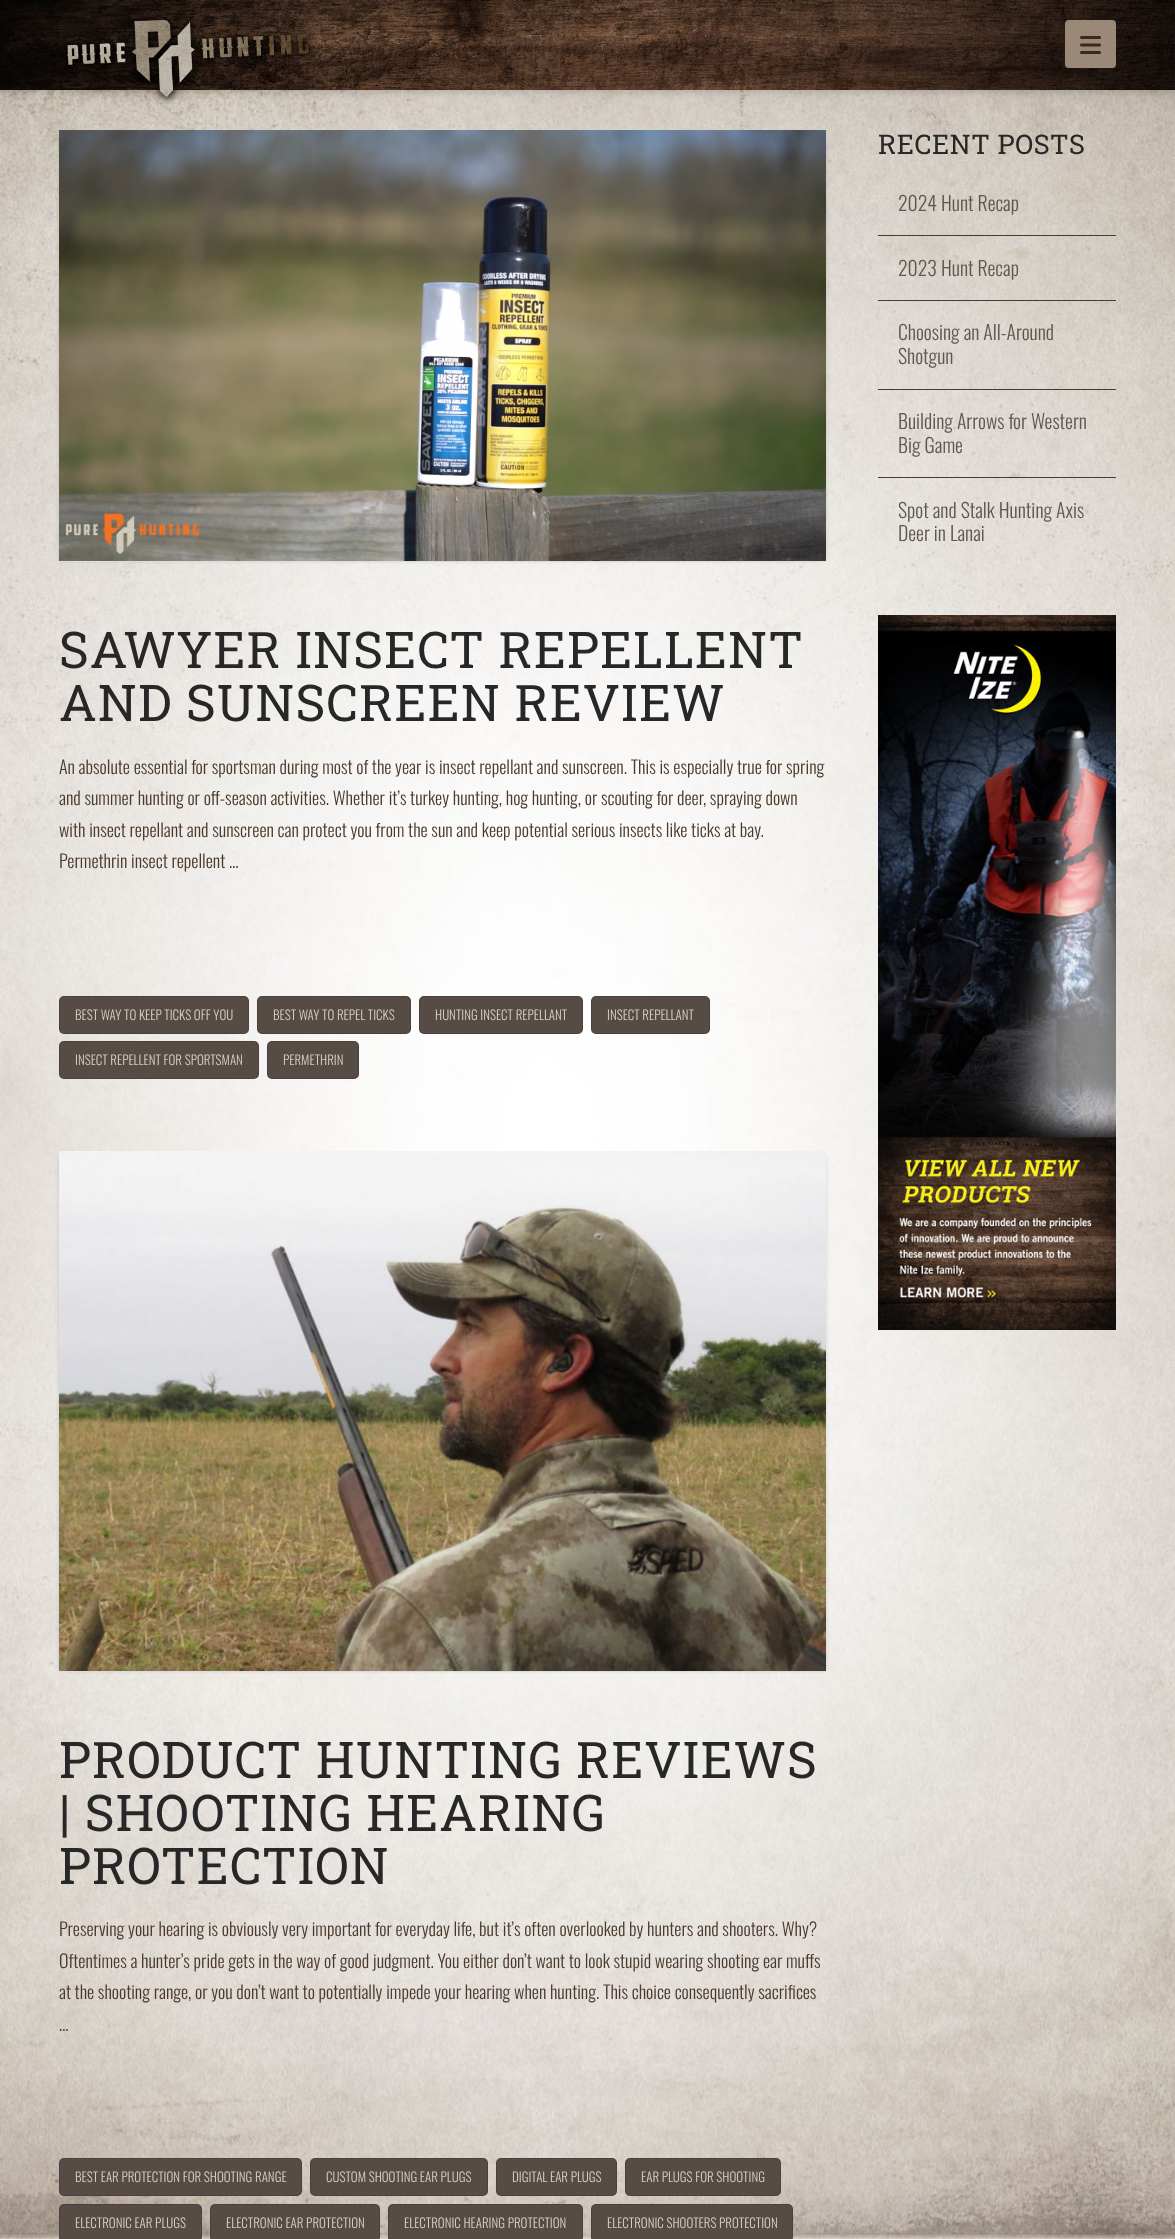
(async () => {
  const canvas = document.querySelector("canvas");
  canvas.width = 1175;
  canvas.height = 2239;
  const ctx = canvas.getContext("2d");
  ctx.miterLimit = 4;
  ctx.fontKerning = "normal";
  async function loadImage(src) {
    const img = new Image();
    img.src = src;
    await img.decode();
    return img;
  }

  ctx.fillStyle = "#ffffff";
  ctx.fillRect(0, 0, 1175, 2239);
  ctx.drawImage(await loadImage("img/1.png"), 0, 90, 1175, 2149);
  ctx.fillStyle = "rgba(0, 0, 0, 0.13)";
  ctx.filter = "blur(3px)";
  ctx.beginPath();
  ctx.rect(0, 3, 1175, 90);
  ctx.fill();
  ctx.filter = "none";
  ctx.drawImage(await loadImage("img/2.png"), 0, 0, 1175, 90);
  ctx.drawImage(await loadImage("img/3.png"), 65, 16, 251, 89);
  ctx.fillStyle = "#9a8976";
  ctx.beginPath();
  ctx.roundRect(1065, 20, 51, 48, 4);
  ctx.fill();
  ctx.drawImage(await loadImage("img/4.png"), 1080, 36, 21, 18);
  ctx.save();
  ctx.beginPath();
  ctx.rect(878, 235, 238, 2);
  ctx.clip();
  ctx.fillStyle = "#51372a";
  ctx.filter = "blur(0.5px)";
  ctx.beginPath();
  ctx.rect(878, 172, 238, 64);
  ctx.fill();
  ctx.filter = "none";
  ctx.restore();
  ctx.save();
  ctx.beginPath();
  ctx.rect(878, 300, 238, 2);
  ctx.clip();
  ctx.fillStyle = "#51372a";
  ctx.filter = "blur(0.5px)";
  ctx.beginPath();
  ctx.rect(878, 236, 238, 65);
  ctx.fill();
  ctx.filter = "none";
  ctx.restore();
  ctx.save();
  ctx.beginPath();
  ctx.rect(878, 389, 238, 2);
  ctx.clip();
  ctx.fillStyle = "#51372a";
  ctx.filter = "blur(0.5px)";
  ctx.beginPath();
  ctx.rect(878, 301, 238, 89);
  ctx.fill();
  ctx.filter = "none";
  ctx.restore();
  ctx.save();
  ctx.beginPath();
  ctx.rect(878, 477, 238, 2);
  ctx.clip();
  ctx.fillStyle = "#51372a";
  ctx.filter = "blur(0.5px)";
  ctx.beginPath();
  ctx.rect(878, 390, 238, 88);
  ctx.fill();
  ctx.filter = "none";
  ctx.restore();
  ctx.drawImage(await loadImage("img/5.png"), 878, 615, 238, 715);
  ctx.fillStyle = "rgba(0, 0, 0, 0.13)";
  ctx.filter = "blur(2px)";
  ctx.beginPath();
  ctx.rect(59, 136, 759, 424);
  ctx.fill();
  ctx.filter = "none";
  ctx.filter = "blur(2px)";
  ctx.beginPath();
  ctx.rect(67, 136, 759, 424);
  ctx.fill();
  ctx.filter = "none";
  ctx.fillStyle = "#dddddd";
  ctx.fillRect(59, 561, 767, 1);
  ctx.drawImage(await loadImage("img/6.png"), 59, 130, 767, 431);
  ctx.fillStyle = "#564b45";
  ctx.beginPath();
  ctx.roundRect(59, 996, 190, 38, 5);
  ctx.fill();
  ctx.beginPath();
  ctx.roundRect(59.5, 996.5, 189, 37, 4.5);
  ctx.strokeStyle = "rgba(0, 0, 0, 0.12)";
  ctx.stroke();
  ctx.beginPath();
  ctx.roundRect(257, 996, 154, 38, 5);
  ctx.fill();
  ctx.beginPath();
  ctx.roundRect(257.5, 996.5, 153, 37, 4.5);
  ctx.stroke();
  ctx.beginPath();
  ctx.roundRect(419, 996, 164, 38, 5);
  ctx.fill();
  ctx.beginPath();
  ctx.roundRect(419.5, 996.5, 163, 37, 4.5);
  ctx.stroke();
  ctx.beginPath();
  ctx.roundRect(591, 996, 119, 38, 5);
  ctx.fill();
  ctx.beginPath();
  ctx.roundRect(591.5, 996.5, 118, 37, 4.5);
  ctx.stroke();
  ctx.beginPath();
  ctx.roundRect(59, 1041, 200, 38, 5);
  ctx.fill();
  ctx.beginPath();
  ctx.roundRect(59.5, 1041.5, 199, 37, 4.5);
  ctx.stroke();
  ctx.beginPath();
  ctx.roundRect(267, 1041, 92, 38, 5);
  ctx.fill();
  ctx.beginPath();
  ctx.roundRect(267.5, 1041.5, 91, 37, 4.5);
  ctx.stroke();
  ctx.fillStyle = "rgba(0, 0, 0, 0.13)";
  ctx.filter = "blur(2px)";
  ctx.beginPath();
  ctx.rect(59, 1157, 759, 513);
  ctx.fill();
  ctx.filter = "none";
  ctx.filter = "blur(2px)";
  ctx.beginPath();
  ctx.rect(67, 1157, 759, 513);
  ctx.fill();
  ctx.filter = "none";
  ctx.fillStyle = "#dddddd";
  ctx.fillRect(59, 1671, 767, 1);
  ctx.drawImage(await loadImage("img/7.png"), 59, 1151, 767, 520);
  ctx.fillStyle = "#564b45";
  ctx.beginPath();
  ctx.roundRect(59, 2158, 243, 38, 5);
  ctx.fill();
  ctx.beginPath();
  ctx.roundRect(59.5, 2158.5, 242, 37, 4.5);
  ctx.stroke();
  ctx.beginPath();
  ctx.roundRect(310, 2158, 178, 38, 5);
  ctx.fill();
  ctx.beginPath();
  ctx.roundRect(310.5, 2158.5, 177, 37, 4.5);
  ctx.stroke();
  ctx.beginPath();
  ctx.roundRect(496, 2158, 121, 38, 5);
  ctx.fill();
  ctx.beginPath();
  ctx.roundRect(496.5, 2158.5, 120, 37, 4.5);
  ctx.stroke();
  ctx.beginPath();
  ctx.roundRect(625, 2158, 156, 38, 5);
  ctx.fill();
  ctx.beginPath();
  ctx.roundRect(625.5, 2158.5, 155, 37, 4.5);
  ctx.stroke();
  ctx.beginPath();
  ctx.roundRect(59, 2204, 143, 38, 5);
  ctx.fill();
  ctx.beginPath();
  ctx.roundRect(59.5, 2204.5, 142, 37, 4.5);
  ctx.stroke();
  ctx.beginPath();
  ctx.roundRect(210, 2204, 170, 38, 5);
  ctx.fill();
  ctx.beginPath();
  ctx.roundRect(210.5, 2204.5, 169, 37, 4.5);
  ctx.stroke();
  ctx.beginPath();
  ctx.roundRect(388, 2204, 195, 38, 5);
  ctx.fill();
  ctx.beginPath();
  ctx.roundRect(388.5, 2204.5, 194, 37, 4.5);
  ctx.stroke();
  ctx.beginPath();
  ctx.roundRect(591, 2204, 202, 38, 5);
  ctx.fill();
  ctx.beginPath();
  ctx.roundRect(591.5, 2204.5, 201, 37, 4.5);
  ctx.stroke();
  ctx.letterSpacing = "0.5px";
  ctx.font = "27px Roboto Slab";
  ctx.fillStyle = "#272727";
  ctx.fillText("RECENT POSTS", 878, 154);
  ctx.letterSpacing = "0px";
  ctx.font = "300 19.75px Oswald";
  ctx.fillStyle = "#5f564f";
  for (const [text, x, y] of [
    ["2024 Hunt Recap", 898, 211],
    ["2023 Hunt Recap", 898, 276],
    ["Choosing an All-Around", 898, 340],
    ["Shotgun", 898, 364],
    ["Building Arrows for Western", 898, 429],
    ["Big Game", 898, 453],
    ["Spot and Stalk Hunting Axis", 898, 518],
    ["Deer in Lanai", 898, 541],
  ]) {
    ctx.fillText(text, x, y);
  }
  ctx.letterSpacing = "1px";
  ctx.font = "50.5px Roboto Slab";
  ctx.fillStyle = "#272727";
  ctx.fillText("SAWYER INSECT REPELLENT", 59, 668);
  ctx.fillText("AND SUNSCREEN REVIEW", 59, 721);
  ctx.letterSpacing = "0px";
  ctx.font = "300 18px Oswald";
  ctx.fillStyle = "#4a382b";
  for (const [text, x, y] of [
    ["An absolute essential for sportsman during most of the year is insect repellant and sunscreen. This is especially true for spring", 59, 774],
    ["and summer hunting or off-season activities. Whether it’s turkey hunting, hog hunting, or scouting for deer, spraying down", 59, 805],
    ["with insect repellant and sunscreen can protect you from the sun and keep potential serious insects like ticks at bay.", 59, 837],
    ["Permethrin insect repellent …", 59, 868],
  ]) {
    ctx.fillText(text, x, y);
  }
  ctx.font = "300 13px Oswald";
  ctx.fillStyle = "#d8cec3";
  for (const [text, x, y] of [
    ["BEST WAY TO KEEP TICKS OFF YOU", 75, 1020],
    ["BEST WAY TO REPEL TICKS", 273, 1020],
    ["HUNTING INSECT REPELLANT", 435, 1020],
    ["INSECT REPELLANT", 607, 1020],
    ["INSECT REPELLENT FOR SPORTSMAN", 75, 1065],
    ["PERMETHRIN", 283, 1065],
  ]) {
    ctx.fillText(text, x, y);
  }
  ctx.letterSpacing = "1px";
  ctx.font = "50.5px Roboto Slab";
  ctx.fillStyle = "#272727";
  for (const [text, x, y] of [
    ["PRODUCT HUNTING REVIEWS", 59, 1778],
    ["| SHOOTING HEARING", 59, 1831],
    ["PROTECTION", 59, 1884],
  ]) {
    ctx.fillText(text, x, y);
  }
  ctx.letterSpacing = "0px";
  ctx.font = "300 18px Oswald";
  ctx.fillStyle = "#4a382b";
  for (const [text, x, y] of [
    ["Preserving your hearing is obviously very important for everyday life, but it’s often overlooked by hunters and shooters. Why?", 59, 1936],
    ["Oftentimes a hunter’s pride gets in the way of good judgment. You either don’t want to look stupid wearing shooting ear muffs", 59, 1968],
    ["at the shooting range, or you don’t want to potentially impede your hearing when hunting. This choice consequently sacrifices", 59, 1999],
    ["…", 59, 2031],
  ]) {
    ctx.fillText(text, x, y);
  }
  ctx.font = "300 13px Oswald";
  ctx.fillStyle = "#d8cec3";
  for (const [text, x, y] of [
    ["BEST EAR PROTECTION FOR SHOOTING RANGE", 75, 2182],
    ["CUSTOM SHOOTING EAR PLUGS", 326, 2182],
    ["DIGITAL EAR PLUGS", 512, 2182],
    ["EAR PLUGS FOR SHOOTING", 641, 2182],
    ["ELECTRONIC EAR PLUGS", 75, 2228],
    ["ELECTRONIC EAR PROTECTION", 226, 2228],
    ["ELECTRONIC HEARING PROTECTION", 404, 2228],
    ["ELECTRONIC SHOOTERS PROTECTION", 607, 2228],
  ]) {
    ctx.fillText(text, x, y);
  }
})();
